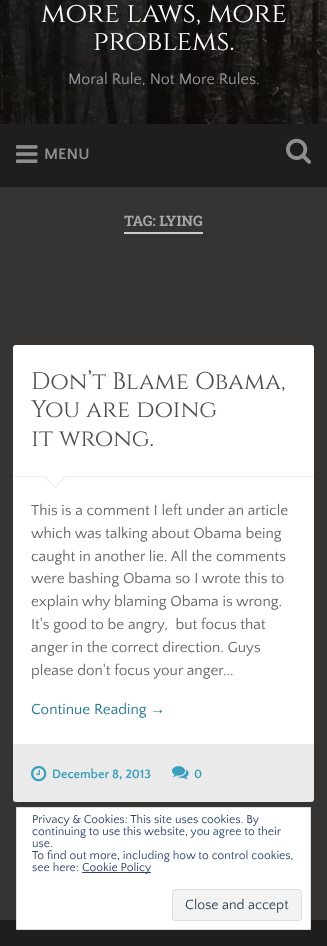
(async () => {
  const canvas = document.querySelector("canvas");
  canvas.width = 327;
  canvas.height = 946;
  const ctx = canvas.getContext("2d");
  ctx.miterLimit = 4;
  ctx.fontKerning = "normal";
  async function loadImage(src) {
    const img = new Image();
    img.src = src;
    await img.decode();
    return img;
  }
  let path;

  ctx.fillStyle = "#353432";
  ctx.fillRect(0, 0, 327, 946);
  ctx.drawImage(await loadImage("img/1.png"), 0, 0, 327, 124);
  ctx.fillStyle = "#1f1e1d";
  ctx.fillRect(0, 124, 327, 63);
  ctx.drawImage(await loadImage("img/2.png"), 16, 145, 22, 18);
  ctx.drawImage(await loadImage("img/3.png"), 286, 138, 25, 26);
  ctx.fillStyle = "#cccccc";
  ctx.fillRect(124, 232, 79, 2);
  ctx.fillStyle = "#ffffff";
  ctx.beginPath();
  ctx.roundRect(13, 345, 301, 457, 3);
  ctx.fill();
  ctx.fillStyle = "#eeeeee";
  ctx.fillRect(13, 476, 301, 1);
  path = new Path2D("M43 476H67L55 488Z");
  ctx.fill(path);
  ctx.fillStyle = "#ffffff";
  path = new Path2D("M44 475H66L55 486Z");
  ctx.fill(path);
  ctx.fillStyle = "rgba(53, 52, 50, 0.1)";
  ctx.beginPath();
  ctx.roundRect(13, 744, 301, 58, [0, 0, 3, 3]);
  ctx.fill();
  ctx.drawImage(await loadImage("img/4.png"), 31, 765, 16, 17);
  ctx.drawImage(await loadImage("img/5.png"), 172, 766, 17, 14);
  ctx.fillStyle = "#1f1e1d";
  ctx.fillRect(0, 920, 327, 26);
  ctx.fillStyle = "#ffffff";
  ctx.beginPath();
  ctx.rect(16.5, 807.5, 294, 122);
  ctx.fill();
  ctx.strokeStyle = "#dedede";
  ctx.stroke();
  ctx.fillStyle = "#2e4467";
  ctx.fillRect(82, 872, 69, 1);
  ctx.fillStyle = "#f3f3f3";
  ctx.beginPath();
  ctx.roundRect(172.5, 889.5, 129, 31, 2.5);
  ctx.fill();
  ctx.stroke();
  ctx.font = "28px Cinzel";
  ctx.fillStyle = "#ffffff";
  ctx.fillText("more laws, more", 41, 22);
  ctx.fillText("problems.", 93, 50);
  ctx.font = "16px Quattrocento Sans";
  ctx.fillStyle = "#999999";
  ctx.fillText("Moral Rule, Not More Rules.", 68, 84);
  ctx.font = "bold 16px Quattrocento Sans";
  ctx.fillStyle = "#8f8f8e";
  ctx.fillText("MENU", 44, 159);
  ctx.font = "bold 14.5px Roboto Slab";
  ctx.fillStyle = "#a8a6a3";
  ctx.fillText("TAG: LYING", 124, 226);
  ctx.font = "24px Cinzel";
  ctx.fillStyle = "#4e4d4a";
  for (const [text, x, y] of [
    ["Don’t Blame Obama,", 31, 389],
    ["You are doing", 31, 417],
    ["it wrong.", 31, 446],
  ]) {
    ctx.fillText(text, x, y);
  }
  ctx.font = "15.25px Quattrocento Sans";
  ctx.fillStyle = "#666666";
  for (const [text, x, y] of [
    ["This is a comment I left under an article", 31, 515],
    ["which was talking about Obama being", 31, 538],
    ["caught in another lie. All the comments", 31, 561],
    ["were bashing Obama so I wrote this to", 31, 583],
    ["explain why blaming Obama is wrong.", 31, 606],
    ["It's good to be angry,  but focus that", 31, 629],
    ["anger in the correct direction. Guys", 31, 652],
    ["please don't focus your anger...", 31, 675],
  ]) {
    ctx.fillText(text, x, y);
  }
  ctx.fillStyle = "#24778d";
  ctx.fillText("Continue Reading", 31, 714);
  ctx.font = "15.25px Liberation Sans";
  ctx.fillText("→", 150, 714);
  ctx.font = "bold 12.75px Quattrocento Sans";
  ctx.fillStyle = "#389fbc";
  ctx.fillText("December 8, 2013", 52, 778);
  ctx.fillText("0", 194, 778);
  ctx.font = "12px Quattrocento Sans";
  ctx.fillStyle = "#2e4467";
  for (const [text, x, y] of [
    ["Privacy & Cookies: This site uses cookies. By", 32, 823],
    ["continuing to use this website, you agree to their", 32, 835],
    ["use.", 32, 847],
    ["To find out more, including how to control cookies,", 32, 859],
    ["see here:", 32, 871],
    ["Cookie Policy", 82, 871],
  ]) {
    ctx.fillText(text, x, y);
  }
  ctx.font = "14px Quattrocento Sans";
  ctx.fillStyle = "#2e4453";
  ctx.fillText("Close and accept", 185, 909);
})();
